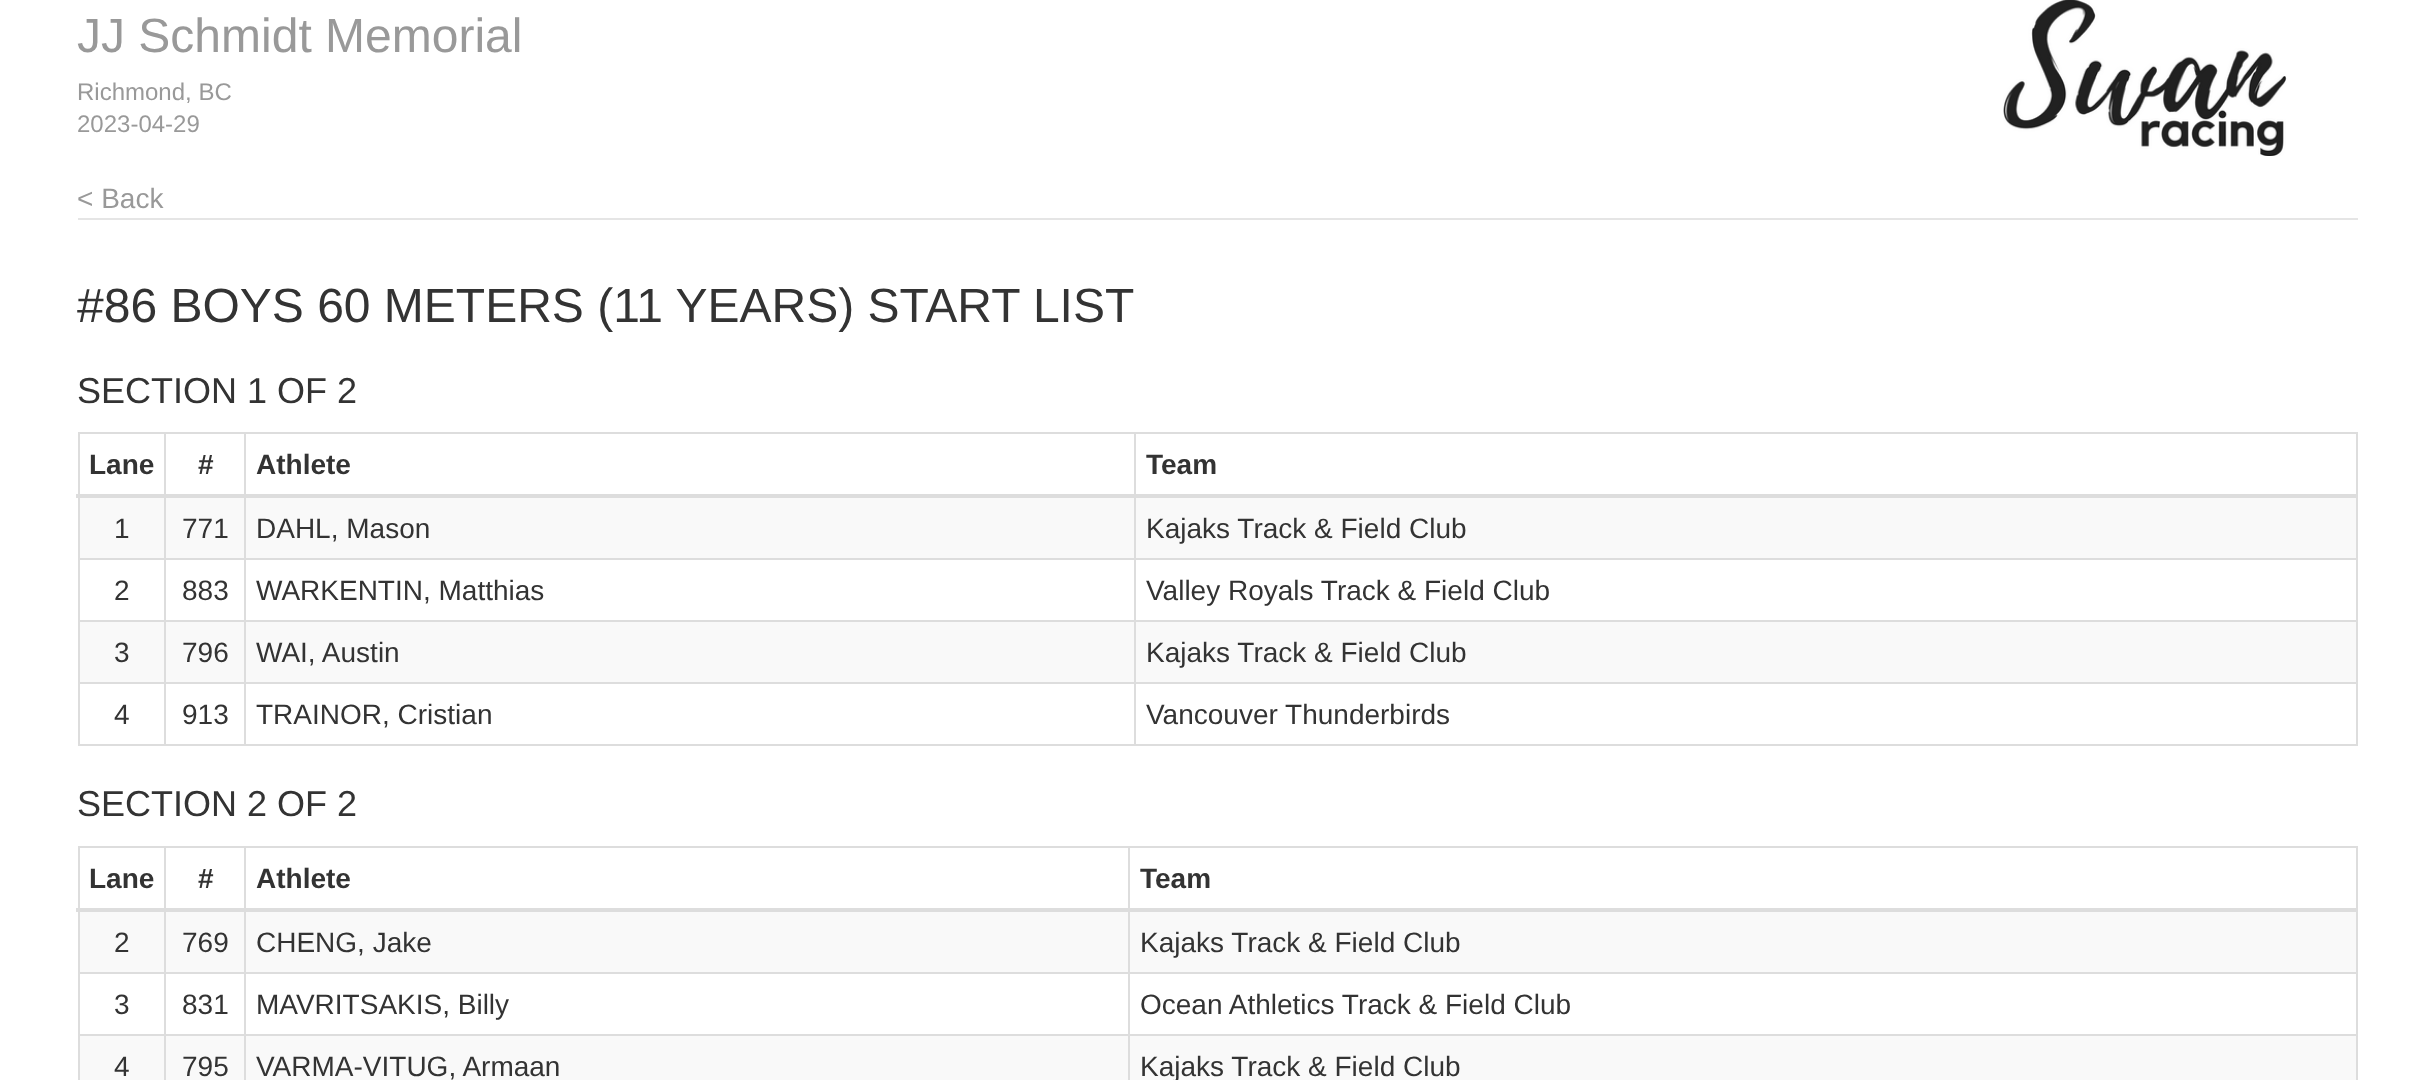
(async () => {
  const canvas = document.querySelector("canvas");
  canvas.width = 2433;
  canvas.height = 1080;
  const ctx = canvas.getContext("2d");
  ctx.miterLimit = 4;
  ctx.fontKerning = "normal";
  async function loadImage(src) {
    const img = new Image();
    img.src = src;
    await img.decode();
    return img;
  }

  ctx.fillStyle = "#ffffff";
  ctx.fillRect(0, 0, 2433, 1080);
  ctx.fillStyle = "#e5e5e5";
  ctx.fillRect(78, 218, 2280, 2);
  ctx.drawImage(await loadImage("img/1.png"), 2003, 0, 284, 156);
  for (const [x, y, w, h, color] of [
    [78, 432, 2280, 2, "#dddddd"],
    [2356, 432, 2, 314, "#dddddd"],
    [78, 744, 2280, 2, "#dddddd"],
    [78, 432, 2, 314, "#dddddd"],
    [1134, 558, 1224, 2, "#dddddd"],
    [1134, 620, 1224, 2, "#dddddd"],
    [1134, 682, 1224, 2, "#dddddd"],
    [1134, 682, 2, 64, "#dddddd"],
    [244, 682, 892, 2, "#dddddd"],
    [1134, 620, 2, 64, "#dddddd"],
    [244, 620, 892, 2, "#dddddd"],
    [1134, 558, 2, 64, "#dddddd"],
    [244, 558, 892, 2, "#dddddd"],
    [244, 682, 2, 64, "#dddddd"],
    [164, 682, 82, 2, "#dddddd"],
    [244, 620, 2, 64, "#dddddd"],
    [164, 620, 82, 2, "#dddddd"],
    [244, 558, 2, 64, "#dddddd"],
    [164, 558, 82, 2, "#dddddd"],
    [164, 682, 2, 64, "#dddddd"],
    [78, 682, 88, 2, "#dddddd"],
    [164, 620, 2, 64, "#dddddd"],
    [78, 620, 88, 2, "#dddddd"],
    [164, 558, 2, 64, "#dddddd"],
    [78, 558, 88, 2, "#dddddd"],
    [164, 432, 2, 128, "#dddddd"],
    [244, 432, 2, 128, "#dddddd"],
    [1134, 432, 2, 128, "#dddddd"],
    [76, 494, 2282, 4, "#dddddd"],
    [80, 498, 84, 60, "#f9f9f9"],
    [166, 498, 78, 60, "#f9f9f9"],
    [246, 498, 888, 60, "#f9f9f9"],
    [1136, 498, 1220, 60, "#f9f9f9"],
    [80, 622, 84, 60, "#f9f9f9"],
    [166, 622, 78, 60, "#f9f9f9"],
    [246, 622, 888, 60, "#f9f9f9"],
    [1136, 622, 1220, 60, "#f9f9f9"],
    [78, 846, 2280, 2, "#dddddd"],
    [2356, 846, 2, 234, "#dddddd"],
    [78, 846, 2, 234, "#dddddd"],
    [1128, 972, 1230, 2, "#dddddd"],
    [1128, 1034, 1230, 2, "#dddddd"],
    [1128, 1034, 2, 46, "#dddddd"],
    [244, 1034, 886, 2, "#dddddd"],
    [1128, 972, 2, 64, "#dddddd"],
    [244, 972, 886, 2, "#dddddd"],
    [244, 1034, 2, 46, "#dddddd"],
    [164, 1034, 82, 2, "#dddddd"],
    [244, 972, 2, 64, "#dddddd"],
    [164, 972, 82, 2, "#dddddd"],
    [164, 1034, 2, 46, "#dddddd"],
    [78, 1034, 88, 2, "#dddddd"],
    [164, 972, 2, 64, "#dddddd"],
    [78, 972, 88, 2, "#dddddd"],
    [164, 846, 2, 128, "#dddddd"],
    [244, 846, 2, 128, "#dddddd"],
    [1128, 846, 2, 128, "#dddddd"],
    [76, 908, 2282, 4, "#dddddd"],
    [80, 912, 84, 60, "#f9f9f9"],
    [166, 912, 78, 60, "#f9f9f9"],
    [246, 912, 882, 60, "#f9f9f9"],
    [1130, 912, 1226, 60, "#f9f9f9"],
    [80, 1036, 84, 44, "#f9f9f9"],
    [166, 1036, 78, 44, "#f9f9f9"],
    [246, 1036, 882, 44, "#f9f9f9"],
    [1130, 1036, 1226, 44, "#f9f9f9"],
  ]) {
    ctx.fillStyle = color;
    ctx.fillRect(x, y, w, h);
  }
  ctx.font = "48px Liberation Sans";
  ctx.fillStyle = "#999999";
  ctx.fillText("JJ Schmidt Memorial", 77, 52);
  ctx.font = "24px Liberation Sans";
  ctx.fillText("Richmond, BC", 77, 100);
  ctx.fillText("2023-04-29", 77, 132);
  ctx.font = "28px Liberation Sans";
  ctx.fillText("< Back", 77, 208);
  ctx.font = "48px Liberation Sans";
  ctx.fillStyle = "#333333";
  ctx.fillText("#86 BOYS 60 METERS (11 YEARS) START LIST", 77, 322);
  ctx.font = "36px Liberation Sans";
  ctx.fillText("SECTION 1 OF 2", 77, 403);
  ctx.font = "bold 28px Liberation Sans";
  for (const [text, x, y] of [
    ["Lane", 89, 474],
    ["#", 198, 474],
    ["Athlete", 256, 474],
    ["Team", 1146, 474],
  ]) {
    ctx.fillText(text, x, y);
  }
  ctx.font = "28px Liberation Sans";
  for (const [text, x, y] of [
    ["1", 114, 538],
    ["771", 182, 538],
    ["DAHL, Mason", 256, 538],
    ["Kajaks Track & Field Club", 1146, 538],
    ["2", 114, 600],
    ["883", 182, 600],
    ["WARKENTIN, Matthias", 256, 600],
    ["Valley Royals Track & Field Club", 1146, 600],
    ["3", 114, 662],
    ["796", 182, 662],
    ["WAI, Austin", 256, 662],
    ["Kajaks Track & Field Club", 1146, 662],
    ["4", 114, 724],
    ["913", 182, 724],
    ["TRAINOR, Cristian", 256, 724],
    ["Vancouver Thunderbirds", 1146, 724],
  ]) {
    ctx.fillText(text, x, y);
  }
  ctx.font = "36px Liberation Sans";
  ctx.fillText("SECTION 2 OF 2", 77, 816);
  ctx.font = "bold 28px Liberation Sans";
  for (const [text, x, y] of [
    ["Lane", 89, 888],
    ["#", 198, 888],
    ["Athlete", 256, 888],
    ["Team", 1140, 888],
  ]) {
    ctx.fillText(text, x, y);
  }
  ctx.font = "28px Liberation Sans";
  for (const [text, x, y] of [
    ["2", 114, 952],
    ["769", 182, 952],
    ["CHENG, Jake", 256, 952],
    ["Kajaks Track & Field Club", 1140, 952],
    ["3", 114, 1014],
    ["831", 182, 1014],
    ["MAVRITSAKIS, Billy", 256, 1014],
    ["Ocean Athletics Track & Field Club", 1140, 1014],
    ["4", 114, 1076],
    ["795", 182, 1076],
    ["VARMA-VITUG, Armaan", 256, 1076],
    ["Kajaks Track & Field Club", 1140, 1076],
  ]) {
    ctx.fillText(text, x, y);
  }
})();
